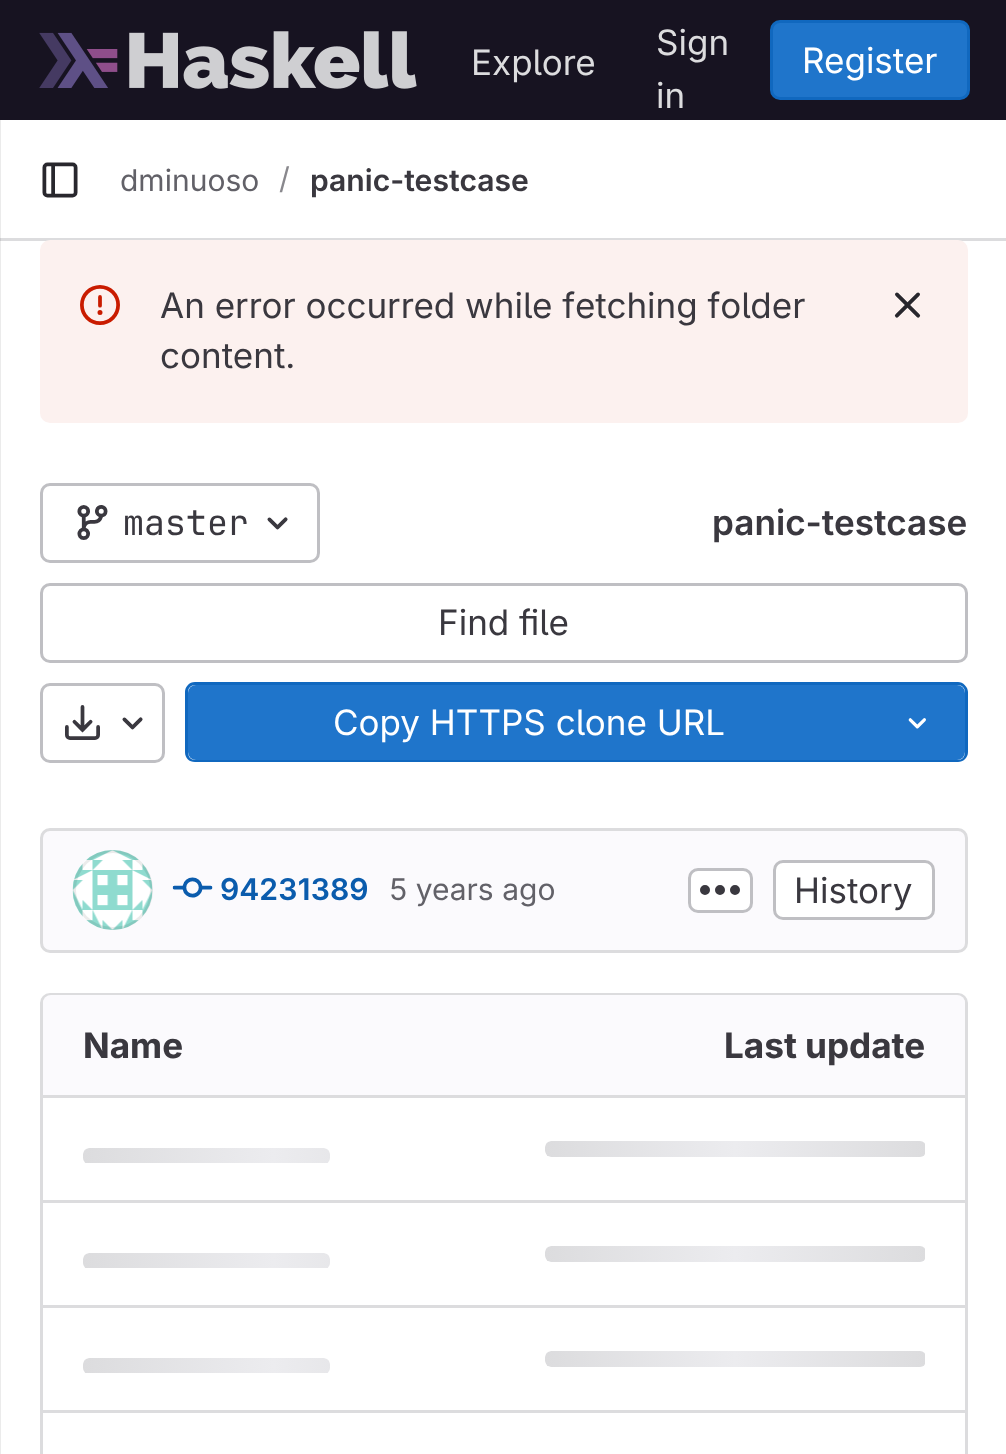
(async () => {
  const canvas = document.querySelector("canvas");
  canvas.width = 1006;
  canvas.height = 1454;
  const ctx = canvas.getContext("2d");
  ctx.miterLimit = 4;
  ctx.fontKerning = "normal";
  async function loadImage(src) {
    const img = new Image();
    img.src = src;
    await img.decode();
    return img;
  }
  let gradient, path;

  ctx.fillStyle = "#ffffff";
  ctx.fillRect(0, 0, 1006, 1454);
  ctx.fillStyle = "#ebebeb";
  ctx.fillRect(0, 241, 1, 1213);
  ctx.fillStyle = "#171321";
  ctx.fillRect(0, 0, 1006, 120);
  ctx.drawImage(await loadImage("img/1.png"), 39, 31, 378, 58);
  ctx.fillStyle = "#1f75cb";
  ctx.beginPath();
  ctx.roundRect(771.5, 21.5, 197, 77, 8.5);
  ctx.fill();
  ctx.strokeStyle = "#1068bf";
  ctx.lineWidth = 3;
  ctx.stroke();
  for (const [x, y, w, h, color] of [
    [0, 120, 1, 120, "#ebebeb"],
    [0, 238, 1006, 3, "#dcdcde"],
    [0, 238, 1, 3, "#cbcbcd"],
  ]) {
    ctx.fillStyle = color;
    ctx.fillRect(x, y, w, h);
  }
  ctx.drawImage(await loadImage("img/2.png"), 42, 162, 36, 36);
  ctx.fillStyle = "#fcf1ef";
  ctx.beginPath();
  ctx.roundRect(40, 240, 928, 183, 10);
  ctx.fill();
  ctx.drawImage(await loadImage("img/3.png"), 80, 285, 40, 40);
  ctx.drawImage(await loadImage("img/4.png"), 894, 292, 27, 26);
  ctx.beginPath();
  ctx.roundRect(41.5, 484.5, 277, 77, 8.5);
  ctx.strokeStyle = "#bfbfc3";
  ctx.stroke();
  ctx.drawImage(await loadImage("img/5.png"), 77, 505, 31, 35);
  ctx.drawImage(await loadImage("img/6.png"), 267, 517, 21, 13);
  ctx.beginPath();
  ctx.roundRect(41.5, 584.5, 925, 77, 8.5);
  ctx.stroke();
  ctx.beginPath();
  ctx.roundRect(41.5, 684.5, 122, 77, 8.5);
  ctx.stroke();
  ctx.drawImage(await loadImage("img/7.png"), 65, 705, 35, 35);
  ctx.drawImage(await loadImage("img/8.png"), 122, 717, 21, 13);
  ctx.fillStyle = "#1f75cb";
  ctx.beginPath();
  ctx.roundRect(188, 685, 682, 75, [8, 0, 0, 8]);
  ctx.fill();
  ctx.fillStyle = "#1068bf";
  path = new Path2D("M195 682H870V762H195C189 762 185 758 185 752V692C185 687 189 682 195 682ZM195 685H870V760H195C191 760 188 757 188 752V692C188 688 191 685 195 685Z");
  ctx.fill(path, "evenodd");
  ctx.fillStyle = "#1f75cb";
  ctx.beginPath();
  ctx.roundRect(870, 685, 95, 75, [0, 8, 8, 0]);
  ctx.fill();
  ctx.fillStyle = "#1068bf";
  path = new Path2D("M870 682H958C963 682 968 687 968 692V752C968 758 963 762 958 762H870ZM870 685H958C962 685 965 688 965 692V752C965 757 962 760 958 760H870Z");
  ctx.fill(path, "evenodd");
  ctx.drawImage(await loadImage("img/9.png"), 908, 718, 18, 11);
  ctx.fillStyle = "#fbfafd";
  ctx.beginPath();
  ctx.roundRect(41.5, 829.5, 925, 122, 8.5);
  ctx.fill();
  ctx.strokeStyle = "#dcdcde";
  ctx.stroke();
  ctx.drawImage(await loadImage("img/10.png"), 72, 850, 81, 80);
  ctx.beginPath();
  ctx.arc(113, 890, 38.5, 0, Math.PI * 2);
  ctx.strokeStyle = "rgba(5, 5, 6, 0.08)";
  ctx.stroke();
  ctx.drawImage(await loadImage("img/11.png"), 172, 877, 41, 21);
  ctx.fillStyle = "#ffffff";
  ctx.beginPath();
  ctx.roundRect(689.5, 869.5, 62, 42, 8.5);
  ctx.fill();
  ctx.strokeStyle = "#bfbfc3";
  ctx.stroke();
  ctx.drawImage(await loadImage("img/12.png"), 700, 885, 40, 10);
  ctx.beginPath();
  ctx.roundRect(774.5, 861.5, 159, 57, 8.5);
  ctx.fill();
  ctx.stroke();
  ctx.beginPath();
  ctx.roundRect(41.5, 994.5, 925, 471, 8.5);
  ctx.strokeStyle = "#dcdcde";
  ctx.stroke();
  ctx.fillStyle = "#fbfafd";
  ctx.beginPath();
  ctx.roundRect(43, 995, 462, 103, [8, 0, 0, 0]);
  ctx.fill();
  ctx.beginPath();
  ctx.roundRect(505, 995, 460, 103, [0, 8, 0, 0]);
  ctx.fill();
  ctx.fillStyle = "#dcdcde";
  ctx.fillRect(43, 1200, 922, 3);
  ctx.fillRect(43, 1095, 922, 3);
  ctx.save();
  ctx.beginPath();
  ctx.roundRect(545, 1141, 381, 16, 6);
  ctx.clip();
  gradient = ctx.createLinearGradient(545, 1141, 926, 1141);
  gradient.addColorStop(0, "#dcdcde");
  gradient.addColorStop(0.5, "#ececef");
  gradient.addColorStop(1, "#dcdcde");
  ctx.fillStyle = gradient;
  ctx.beginPath();
  ctx.roundRect(545, 1141, 380, 16, [6, 0, 0, 6]);
  ctx.fill();
  ctx.restore();
  ctx.save();
  ctx.beginPath();
  ctx.roundRect(83, 1148, 247, 16, 6);
  ctx.clip();
  gradient = ctx.createLinearGradient(83, 1148, 464, 1148);
  gradient.addColorStop(0, "#dcdcde");
  gradient.addColorStop(0.5, "#ececef");
  gradient.addColorStop(1, "#dcdcde");
  ctx.fillStyle = gradient;
  ctx.beginPath();
  ctx.roundRect(83, 1148, 247, 15, [6, 6, 0, 0]);
  ctx.fill();
  ctx.restore();
  ctx.fillRect(43, 1305, 922, 3);
  ctx.save();
  ctx.beginPath();
  ctx.roundRect(83, 1253, 247, 16, 6);
  ctx.clip();
  gradient = ctx.createLinearGradient(83, 1253, 464, 1253);
  gradient.addColorStop(0, "#dcdcde");
  gradient.addColorStop(0.5, "#ececef");
  gradient.addColorStop(1, "#dcdcde");
  ctx.fillStyle = gradient;
  ctx.beginPath();
  ctx.roundRect(83, 1253, 247, 15, [6, 6, 0, 0]);
  ctx.fill();
  ctx.restore();
  ctx.save();
  ctx.beginPath();
  ctx.roundRect(545, 1246, 381, 16, 6);
  ctx.clip();
  gradient = ctx.createLinearGradient(545, 1246, 926, 1246);
  gradient.addColorStop(0, "#dcdcde");
  gradient.addColorStop(0.5, "#ececef");
  gradient.addColorStop(1, "#dcdcde");
  ctx.fillStyle = gradient;
  ctx.beginPath();
  ctx.roundRect(545, 1246, 380, 16, [6, 0, 0, 6]);
  ctx.fill();
  ctx.restore();
  ctx.fillRect(43, 1410, 922, 3);
  ctx.save();
  ctx.beginPath();
  ctx.roundRect(83, 1358, 247, 16, 6);
  ctx.clip();
  gradient = ctx.createLinearGradient(83, 1358, 464, 1358);
  gradient.addColorStop(0, "#dcdcde");
  gradient.addColorStop(0.5, "#ececef");
  gradient.addColorStop(1, "#dcdcde");
  ctx.fillStyle = gradient;
  ctx.beginPath();
  ctx.roundRect(83, 1358, 247, 15, [6, 6, 0, 0]);
  ctx.fill();
  ctx.restore();
  ctx.save();
  ctx.beginPath();
  ctx.roundRect(545, 1351, 381, 16, 6);
  ctx.clip();
  gradient = ctx.createLinearGradient(545, 1351, 926, 1351);
  gradient.addColorStop(0, "#dcdcde");
  gradient.addColorStop(0.5, "#ececef");
  gradient.addColorStop(1, "#dcdcde");
  ctx.fillStyle = gradient;
  ctx.beginPath();
  ctx.roundRect(545, 1351, 380, 16, [6, 0, 0, 6]);
  ctx.fill();
  ctx.restore();
  ctx.font = "35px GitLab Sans";
  for (const [text, x, y] of [
    ["Explore", 471, 75],
    ["Sign", 656, 55],
    ["in", 656, 108],
  ]) {
    ctx.fillText(text, x, y);
  }
  ctx.fillStyle = "#ffffff";
  ctx.fillText("Register", 802, 73);
  ctx.font = "30px GitLab Sans";
  ctx.fillStyle = "#626168";
  ctx.fillText("dminuoso", 120, 191);
  ctx.fillStyle = "#89888d";
  ctx.fillText("/", 279, 189);
  ctx.font = "600 30px GitLab Sans";
  ctx.fillStyle = "#3a383f";
  ctx.fillText("panic-testcase", 310, 191);
  ctx.font = "35px GitLab Sans";
  ctx.fillText("An error occurred while fetching folder", 160, 318);
  ctx.fillText("content.", 160, 368);
  ctx.font = "35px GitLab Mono";
  ctx.fillText("master", 123, 535);
  ctx.font = "600 35px GitLab Sans";
  ctx.fillText("panic-testcase", 712, 535);
  ctx.font = "35px GitLab Sans";
  ctx.fillText("Find file", 438, 635);
  ctx.fillStyle = "#ffffff";
  ctx.fillText("Copy HTTPS clone URL", 333, 735);
  ctx.font = "600 30px GitLab Sans";
  ctx.fillStyle = "#0b5cad";
  ctx.fillText("94231389", 220, 900);
  ctx.font = "30px GitLab Sans";
  ctx.fillStyle = "#626168";
  ctx.fillText("5 years ago", 389, 900);
  ctx.font = "35px GitLab Sans";
  ctx.fillStyle = "#3a383f";
  ctx.fillText("History", 794, 903);
  ctx.font = "bold 35px GitLab Sans";
  ctx.fillText("Name", 83, 1058);
  ctx.fillText("Last update", 724, 1058);
})();
